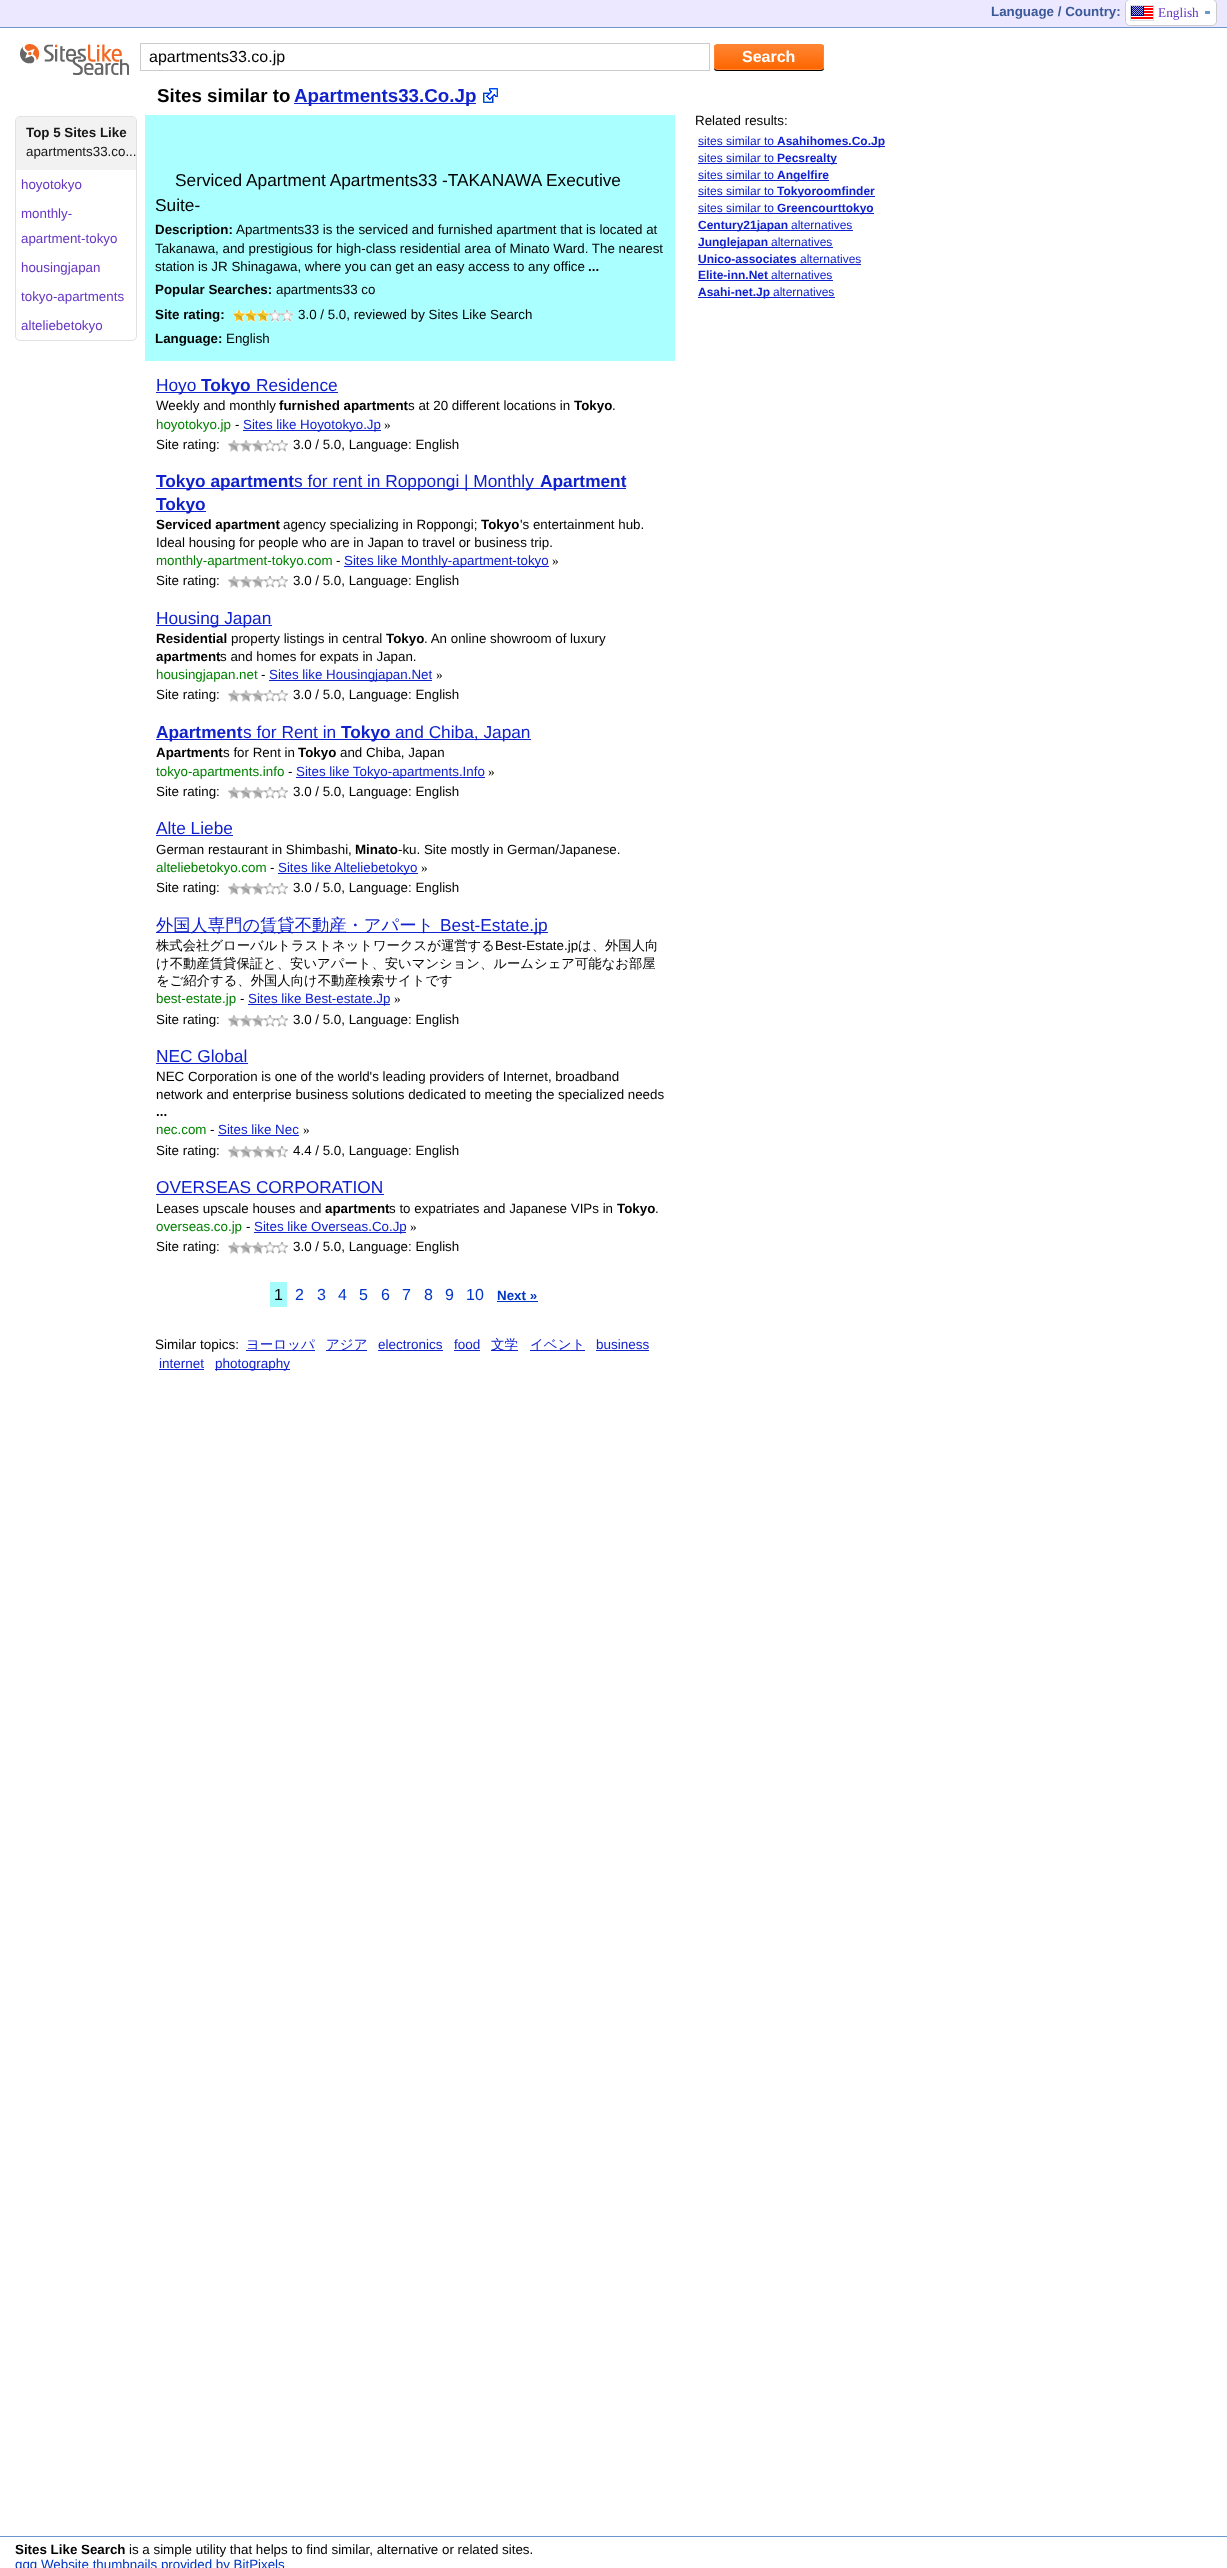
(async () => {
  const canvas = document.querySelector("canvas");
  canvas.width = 1227;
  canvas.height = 2568;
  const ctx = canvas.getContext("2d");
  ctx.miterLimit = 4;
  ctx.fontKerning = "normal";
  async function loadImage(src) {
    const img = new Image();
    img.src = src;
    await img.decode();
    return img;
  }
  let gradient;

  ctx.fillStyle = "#ffffff";
  ctx.fillRect(0, 0, 1227, 2568);
  ctx.fillStyle = "#ebe8ff";
  ctx.fillRect(0, 0, 1227, 27);
  ctx.fillStyle = "#6a98cd";
  ctx.fillRect(0, 27, 1227, 1);
  ctx.fillStyle = "#ffffff";
  ctx.beginPath();
  ctx.roundRect(1125.5, -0.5, 91, 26, 4.5);
  ctx.fill();
  ctx.strokeStyle = "#cccccc";
  ctx.stroke();
  ctx.beginPath();
  ctx.roundRect(1126, 0, 90, 25, 5);
  ctx.fill();
  ctx.drawImage(await loadImage("img/1.png"), 1131, 6, 22, 14);
  ctx.strokeStyle = "#dddddd";
  ctx.strokeRect(1130.5, 5.5, 23, 15);
  ctx.fillStyle = "#6a98cd";
  ctx.fillRect(1205, 11, 5, 3);
  ctx.drawImage(await loadImage("img/2.png"), 20, 44, 109, 31);
  ctx.strokeStyle = "#cccccc";
  ctx.strokeRect(140.5, 43.5, 569, 27);
  ctx.fillStyle = "#000000";
  ctx.filter = "blur(0.5px)";
  ctx.beginPath();
  ctx.roundRect(714, 45, 110, 26, 3);
  ctx.fill();
  ctx.filter = "none";
  ctx.save();
  ctx.beginPath();
  ctx.roundRect(714, 44, 110, 26, 3);
  ctx.clip();
  gradient = ctx.createLinearGradient(715, 45, 715, 69);
  gradient.addColorStop(0, "#ff8533");
  gradient.addColorStop(1, "#ff6600");
  ctx.fillStyle = gradient;
  ctx.fillRect(714, 45, 110, 24);
  ctx.restore();
  ctx.beginPath();
  ctx.roundRect(714.5, 44.5, 109, 25, 2.5);
  ctx.strokeStyle = "#ff8533";
  ctx.stroke();
  ctx.fillStyle = "#1122cc";
  ctx.fillRect(294, 103, 182, 1);
  ctx.drawImage(await loadImage("img/3.png"), 483, 88, 15, 15);
  ctx.beginPath();
  ctx.roundRect(15.5, 116.5, 121, 224, 4.5);
  ctx.strokeStyle = "#e2e2e2";
  ctx.stroke();
  ctx.fillStyle = "#f2f2f2";
  ctx.beginPath();
  ctx.roundRect(16, 117, 120, 53, [4, 4, 0, 0]);
  ctx.fill();
  ctx.fillStyle = "#aaffff";
  ctx.fillRect(145, 115, 530, 246);
  ctx.drawImage(await loadImage("img/4.png"), 269, 310, 24, 12);
  ctx.drawImage(await loadImage("img/5.png"), 233, 310, 36, 12);
  ctx.fillStyle = "#1122cc";
  ctx.fillRect(156, 392, 182, 1);
  ctx.fillRect(243, 430, 138, 1);
  ctx.drawImage(await loadImage("img/6.png"), 264, 440, 24, 12);
  ctx.drawImage(await loadImage("img/7.png"), 228, 440, 36, 12);
  for (const [x, y, w, h, color] of [
    [156, 488, 138, 1, "#1122cc"],
    [294, 488, 332, 1, "#1122cc"],
    [156, 511, 50, 1, "#1122cc"],
    [344, 566, 205, 1, "#1122cc"],
  ]) {
    ctx.fillStyle = color;
    ctx.fillRect(x, y, w, h);
  }
  ctx.drawImage(await loadImage("img/6.png"), 264, 576, 24, 12);
  ctx.drawImage(await loadImage("img/7.png"), 228, 576, 36, 12);
  ctx.fillRect(156, 625, 116, 1);
  ctx.fillRect(269, 680, 163, 1);
  ctx.drawImage(await loadImage("img/6.png"), 264, 690, 24, 12);
  ctx.drawImage(await loadImage("img/7.png"), 228, 690, 36, 12);
  ctx.fillRect(156, 739, 375, 1);
  ctx.fillRect(296, 777, 189, 1);
  ctx.drawImage(await loadImage("img/6.png"), 264, 787, 24, 12);
  ctx.drawImage(await loadImage("img/7.png"), 228, 787, 36, 12);
  ctx.fillRect(156, 835, 77, 1);
  ctx.fillRect(278, 873, 140, 1);
  ctx.drawImage(await loadImage("img/6.png"), 264, 883, 24, 12);
  ctx.drawImage(await loadImage("img/7.png"), 228, 883, 36, 12);
  ctx.fillRect(156, 932, 392, 1);
  ctx.fillRect(248, 1004, 142, 1);
  ctx.drawImage(await loadImage("img/6.png"), 264, 1015, 24, 12);
  ctx.drawImage(await loadImage("img/7.png"), 228, 1015, 36, 12);
  ctx.fillRect(156, 1063, 92, 1);
  ctx.fillRect(218, 1135, 81, 1);
  ctx.drawImage(await loadImage("img/8.png"), 281, 1146, 7, 12);
  ctx.drawImage(await loadImage("img/9.png"), 228, 1146, 53, 12);
  ctx.fillRect(156, 1194, 228, 1);
  ctx.fillRect(254, 1232, 152, 1);
  ctx.drawImage(await loadImage("img/6.png"), 264, 1242, 24, 12);
  ctx.drawImage(await loadImage("img/7.png"), 228, 1242, 36, 12);
  for (const [x, y, w, h, color] of [
    [270, 1282, 17, 25, "#a5fbfc"],
    [497, 1301, 41, 1, "#0036c3"],
    [246, 1350, 69, 1, "#1122cc"],
    [326, 1350, 41, 1, "#1122cc"],
    [378, 1350, 65, 1, "#1122cc"],
    [454, 1350, 26, 1, "#1122cc"],
    [491, 1350, 27, 1, "#1122cc"],
    [530, 1350, 55, 1, "#1122cc"],
    [596, 1350, 53, 1, "#1122cc"],
    [159, 1369, 45, 1, "#1122cc"],
    [215, 1369, 75, 1, "#1122cc"],
    [698, 146, 187, 1, "#1122cc"],
    [698, 163, 139, 1, "#1122cc"],
    [698, 180, 131, 1, "#1122cc"],
    [698, 196, 177, 1, "#1122cc"],
    [698, 213, 176, 1, "#1122cc"],
    [698, 230, 155, 1, "#1122cc"],
    [698, 247, 135, 1, "#1122cc"],
    [698, 264, 163, 1, "#1122cc"],
    [698, 280, 135, 1, "#1122cc"],
    [698, 297, 137, 1, "#1122cc"],
    [0, 2536, 1227, 1, "#6a98cd"],
  ]) {
    ctx.fillStyle = color;
    ctx.fillRect(x, y, w, h);
  }
  ctx.font = "bold 13.35px Liberation Sans";
  ctx.fillStyle = "#3b5998";
  ctx.fillText("Language / Country:", 991, 16);
  ctx.font = "13.35px Liberation Serif";
  ctx.fillStyle = "#6636c3";
  ctx.fillText("English", 1158, 17);
  ctx.font = "16px Liberation Sans";
  ctx.fillStyle = "#000000";
  ctx.fillText("apartments33.co.jp", 149, 62);
  ctx.font = "bold 16px Liberation Sans";
  ctx.fillStyle = "#ffffff";
  ctx.fillText("Search", 742, 62);
  ctx.font = "bold 18.75px Liberation Sans";
  ctx.fillStyle = "#000000";
  ctx.fillText("Sites similar to", 157, 102);
  ctx.fillStyle = "#1122cc";
  ctx.fillText("Apartments33.Co.Jp", 294, 102);
  ctx.font = "bold 13.35px Liberation Sans";
  ctx.fillStyle = "#151515";
  ctx.fillText("Top 5 Sites Like", 26, 137);
  ctx.font = "13.35px Liberation Sans";
  ctx.fillText("apartments33.co...", 26, 156);
  ctx.fillStyle = "#6636c3";
  for (const [text, x, y] of [
    ["hoyotokyo", 21, 189],
    ["monthly-", 21, 218],
    ["apartment-tokyo", 21, 243],
    ["housingjapan", 21, 272],
    ["tokyo-apartments", 21, 301],
    ["alteliebetokyo", 21, 330],
  ]) {
    ctx.fillText(text, x, y);
  }
  ctx.font = "17.3px Liberation Sans";
  ctx.fillStyle = "#000000";
  ctx.fillText("Serviced Apartment Apartments33 -TAKANAWA Executive", 175, 186);
  ctx.fillText("Suite-", 155, 211);
  ctx.font = "bold 13.35px Liberation Sans";
  ctx.fillText("Description:", 155, 234);
  ctx.font = "13.35px Liberation Sans";
  for (const [text, x, y] of [
    ["Apartments33 is the serviced and furnished apartment that is located at", 236, 234],
    ["Takanawa, and prestigious for high-class residential area of Minato Ward. The nearest", 155, 253],
    ["station is JR Shinagawa, where you can get an easy access to any office", 155, 271],
  ]) {
    ctx.fillText(text, x, y);
  }
  ctx.font = "bold 13.35px Liberation Sans";
  ctx.fillText("...", 588, 271);
  ctx.fillText("Popular Searches:", 155, 294);
  ctx.font = "13.35px Liberation Sans";
  ctx.fillText("apartments33 co", 276, 294);
  ctx.font = "bold 13.35px Liberation Sans";
  ctx.fillText("Site rating:", 155, 319);
  ctx.font = "13.35px Liberation Sans";
  ctx.fillText("3.0 / 5.0, reviewed by Sites Like Search", 298, 319);
  ctx.font = "bold 13.35px Liberation Sans";
  ctx.fillText("Language:", 155, 343);
  ctx.font = "13.35px Liberation Sans";
  ctx.fillText("English", 226, 343);
  ctx.font = "17.3px Liberation Sans";
  ctx.fillStyle = "#1122cc";
  ctx.fillText("Hoyo", 156, 391);
  ctx.font = "bold 17.3px Liberation Sans";
  ctx.fillText("Tokyo", 201, 391);
  ctx.font = "17.3px Liberation Sans";
  ctx.fillText("Residence", 256, 391);
  ctx.font = "13.35px Liberation Sans";
  ctx.fillStyle = "#000000";
  ctx.fillText("Weekly and monthly", 156, 410);
  ctx.font = "bold 13.35px Liberation Sans";
  ctx.fillText("furnished apartment", 279, 410);
  ctx.font = "13.35px Liberation Sans";
  ctx.fillText("s at 20 different locations in", 408, 410);
  ctx.font = "bold 13.35px Liberation Sans";
  ctx.fillText("Tokyo", 574, 410);
  ctx.font = "13.35px Liberation Sans";
  ctx.fillText(".", 612, 410);
  ctx.fillStyle = "#008000";
  ctx.fillText("hoyotokyo.jp", 156, 429);
  ctx.fillStyle = "#000000";
  ctx.fillText("-", 235, 429);
  ctx.fillStyle = "#1122cc";
  ctx.fillText("Sites like Hoyotokyo.Jp", 243, 429);
  ctx.font = "13.35px Liberation Serif";
  ctx.fillStyle = "#000000";
  ctx.fillText("»", 384, 429);
  ctx.font = "13.35px Liberation Sans";
  ctx.fillText("Site rating:", 156, 449);
  ctx.fillText("3.0 / 5.0, Language: English", 293, 449);
  ctx.font = "bold 17.3px Liberation Sans";
  ctx.fillStyle = "#1122cc";
  ctx.fillText("Tokyo apartment", 156, 487);
  ctx.font = "17.3px Liberation Sans";
  ctx.fillText("s for rent in Roppongi | Monthly", 294, 487);
  ctx.font = "bold 17.3px Liberation Sans";
  ctx.fillText("Apartment", 540, 487);
  ctx.fillText("Tokyo", 156, 510);
  ctx.font = "bold 13.35px Liberation Sans";
  ctx.fillStyle = "#000000";
  ctx.fillText("Serviced apartment", 156, 529);
  ctx.font = "13.35px Liberation Sans";
  ctx.fillText("agency specializing in Roppongi;", 283, 529);
  ctx.font = "bold 13.35px Liberation Sans";
  ctx.fillText("Tokyo", 481, 529);
  ctx.font = "13.35px Liberation Sans";
  ctx.fillText("'s entertainment hub.", 520, 529);
  ctx.fillText("Ideal housing for people who are in Japan to travel or business trip.", 156, 547);
  ctx.fillStyle = "#008000";
  ctx.fillText("monthly-apartment-tokyo.com", 156, 565);
  ctx.fillStyle = "#000000";
  ctx.fillText("-", 336, 565);
  ctx.fillStyle = "#1122cc";
  ctx.fillText("Sites like Monthly-apartment-tokyo", 344, 565);
  ctx.font = "13.35px Liberation Serif";
  ctx.fillStyle = "#000000";
  ctx.fillText("»", 552, 565);
  ctx.font = "13.35px Liberation Sans";
  ctx.fillText("Site rating:", 156, 585);
  ctx.fillText("3.0 / 5.0, Language: English", 293, 585);
  ctx.font = "17.3px Liberation Sans";
  ctx.fillStyle = "#1122cc";
  ctx.fillText("Housing Japan", 156, 624);
  ctx.font = "bold 13.35px Liberation Sans";
  ctx.fillStyle = "#000000";
  ctx.fillText("Residential", 156, 643);
  ctx.font = "13.35px Liberation Sans";
  ctx.fillText("property listings in central", 231, 643);
  ctx.font = "bold 13.35px Liberation Sans";
  ctx.fillText("Tokyo", 386, 643);
  ctx.font = "13.35px Liberation Sans";
  ctx.fillText(". An online showroom of luxury", 424, 643);
  ctx.font = "bold 13.35px Liberation Sans";
  ctx.fillText("apartment", 156, 661);
  ctx.font = "13.35px Liberation Sans";
  ctx.fillText("s and homes for expats in Japan.", 220, 661);
  ctx.fillStyle = "#008000";
  ctx.fillText("housingjapan.net", 156, 679);
  ctx.fillStyle = "#000000";
  ctx.fillText("-", 261, 679);
  ctx.fillStyle = "#1122cc";
  ctx.fillText("Sites like Housingjapan.Net", 269, 679);
  ctx.font = "13.35px Liberation Serif";
  ctx.fillStyle = "#000000";
  ctx.fillText("»", 436, 679);
  ctx.font = "13.35px Liberation Sans";
  ctx.fillText("Site rating:", 156, 699);
  ctx.fillText("3.0 / 5.0, Language: English", 293, 699);
  ctx.font = "bold 17.3px Liberation Sans";
  ctx.fillStyle = "#1122cc";
  ctx.fillText("Apartment", 156, 738);
  ctx.font = "17.3px Liberation Sans";
  ctx.fillText("s for Rent in", 243, 738);
  ctx.font = "bold 17.3px Liberation Sans";
  ctx.fillText("Tokyo", 341, 738);
  ctx.font = "17.3px Liberation Sans";
  ctx.fillText("and Chiba, Japan", 395, 738);
  ctx.font = "bold 13.35px Liberation Sans";
  ctx.fillStyle = "#000000";
  ctx.fillText("Apartment", 156, 757);
  ctx.font = "13.35px Liberation Sans";
  ctx.fillText("s for Rent in", 223, 757);
  ctx.font = "bold 13.35px Liberation Sans";
  ctx.fillText("Tokyo", 298, 757);
  ctx.font = "13.35px Liberation Sans";
  ctx.fillText("and Chiba, Japan", 340, 757);
  ctx.fillStyle = "#008000";
  ctx.fillText("tokyo-apartments.info", 156, 776);
  ctx.fillStyle = "#000000";
  ctx.fillText("-", 288, 776);
  ctx.fillStyle = "#1122cc";
  ctx.fillText("Sites like Tokyo-apartments.Info", 296, 776);
  ctx.font = "13.35px Liberation Serif";
  ctx.fillStyle = "#000000";
  ctx.fillText("»", 488, 776);
  ctx.font = "13.35px Liberation Sans";
  ctx.fillText("Site rating:", 156, 796);
  ctx.fillText("3.0 / 5.0, Language: English", 293, 796);
  ctx.font = "17.3px Liberation Sans";
  ctx.fillStyle = "#1122cc";
  ctx.fillText("Alte Liebe", 156, 834);
  ctx.font = "13.35px Liberation Sans";
  ctx.fillStyle = "#000000";
  ctx.fillText("German restaurant in Shimbashi,", 156, 854);
  ctx.font = "bold 13.35px Liberation Sans";
  ctx.fillText("Minato", 355, 854);
  ctx.font = "13.35px Liberation Sans";
  ctx.fillText("-ku. Site mostly in German/Japanese.", 398, 854);
  ctx.fillStyle = "#008000";
  ctx.fillText("alteliebetokyo.com", 156, 872);
  ctx.fillStyle = "#000000";
  ctx.fillText("-", 270, 872);
  ctx.fillStyle = "#1122cc";
  ctx.fillText("Sites like Alteliebetokyo", 278, 872);
  ctx.font = "13.35px Liberation Serif";
  ctx.fillStyle = "#000000";
  ctx.fillText("»", 421, 872);
  ctx.font = "13.35px Liberation Sans";
  ctx.fillText("Site rating:", 156, 892);
  ctx.fillText("3.0 / 5.0, Language: English", 293, 892);
  ctx.font = "500 17.3px WenQuanYi Zen Hei";
  ctx.fillStyle = "#1122cc";
  ctx.fillText("外国人専門の賃貸不動産・アパート", 156, 931);
  ctx.font = "17.3px Liberation Sans";
  ctx.fillText("Best-Estate.jp", 440, 931);
  ctx.font = "500 13.35px WenQuanYi Zen Hei";
  ctx.fillStyle = "#000000";
  ctx.fillText("株式会社グローバルトラストネットワークスが運営する", 156, 950);
  ctx.font = "13.35px Liberation Sans";
  ctx.fillText("Best-Estate.jp", 495, 950);
  ctx.font = "500 13.35px WenQuanYi Zen Hei";
  for (const [text, x, y] of [
    ["は、外国人向", 578, 950],
    ["け不動産賃貸保証と、安いアパート、安いマンション、ルームシェア可能なお部屋", 156, 968],
    ["をご紹介する、外国人向け不動産検索サイトです", 156, 985],
  ]) {
    ctx.fillText(text, x, y);
  }
  ctx.font = "13.35px Liberation Sans";
  ctx.fillStyle = "#008000";
  ctx.fillText("best-estate.jp", 156, 1003);
  ctx.fillStyle = "#000000";
  ctx.fillText("-", 240, 1003);
  ctx.fillStyle = "#1122cc";
  ctx.fillText("Sites like Best-estate.Jp", 248, 1003);
  ctx.font = "13.35px Liberation Serif";
  ctx.fillStyle = "#000000";
  ctx.fillText("»", 394, 1003);
  ctx.font = "13.35px Liberation Sans";
  ctx.fillText("Site rating:", 156, 1024);
  ctx.fillText("3.0 / 5.0, Language: English", 293, 1024);
  ctx.font = "17.3px Liberation Sans";
  ctx.fillStyle = "#1122cc";
  ctx.fillText("NEC Global", 156, 1062);
  ctx.font = "13.35px Liberation Sans";
  ctx.fillStyle = "#000000";
  ctx.fillText("NEC Corporation is one of the world's leading providers of Internet, broadband", 156, 1081);
  ctx.fillText("network and enterprise business solutions dedicated to meeting the specialized needs", 156, 1099);
  ctx.font = "bold 13.35px Liberation Sans";
  ctx.fillText("...", 156, 1116);
  ctx.font = "13.35px Liberation Sans";
  ctx.fillStyle = "#008000";
  ctx.fillText("nec.com", 156, 1134);
  ctx.fillStyle = "#000000";
  ctx.fillText("-", 210, 1134);
  ctx.fillStyle = "#1122cc";
  ctx.fillText("Sites like Nec", 218, 1134);
  ctx.font = "13.35px Liberation Serif";
  ctx.fillStyle = "#000000";
  ctx.fillText("»", 303, 1134);
  ctx.font = "13.35px Liberation Sans";
  ctx.fillText("Site rating:", 156, 1155);
  ctx.fillText("4.4 / 5.0, Language: English", 293, 1155);
  ctx.font = "17.3px Liberation Sans";
  ctx.fillStyle = "#1122cc";
  ctx.fillText("OVERSEAS CORPORATION", 156, 1193);
  ctx.font = "13.35px Liberation Sans";
  ctx.fillStyle = "#000000";
  ctx.fillText("Leases upscale houses and", 156, 1213);
  ctx.font = "bold 13.35px Liberation Sans";
  ctx.fillText("apartment", 325, 1213);
  ctx.font = "13.35px Liberation Sans";
  ctx.fillText("s to expatriates and Japanese VIPs in", 389, 1213);
  ctx.font = "bold 13.35px Liberation Sans";
  ctx.fillText("Tokyo", 617, 1213);
  ctx.font = "13.35px Liberation Sans";
  ctx.fillText(".", 655, 1213);
  ctx.fillStyle = "#008000";
  ctx.fillText("overseas.co.jp", 156, 1231);
  ctx.fillStyle = "#000000";
  ctx.fillText("-", 246, 1231);
  ctx.fillStyle = "#1122cc";
  ctx.fillText("Sites like Overseas.Co.Jp", 254, 1231);
  ctx.font = "13.35px Liberation Serif";
  ctx.fillStyle = "#000000";
  ctx.fillText("»", 410, 1231);
  ctx.font = "13.35px Liberation Sans";
  ctx.fillText("Site rating:", 156, 1251);
  ctx.fillText("3.0 / 5.0, Language: English", 293, 1251);
  ctx.font = "16px Liberation Sans";
  ctx.fillText("1", 274, 1300);
  ctx.fillStyle = "#0036c3";
  for (const [text, x, y] of [
    ["2", 295, 1300],
    ["3", 317, 1300],
    ["4", 338, 1300],
    ["5", 359, 1300],
    ["6", 381, 1300],
    ["7", 402, 1300],
    ["8", 424, 1300],
    ["9", 445, 1300],
    ["10", 466, 1300],
  ]) {
    ctx.fillText(text, x, y);
  }
  ctx.font = "bold 13.35px Liberation Sans";
  ctx.fillText("Next »", 497, 1300);
  ctx.font = "13.5px Liberation Sans";
  ctx.fillStyle = "#000000";
  ctx.fillText("Similar topics:", 155, 1349);
  ctx.font = "500 13.5px WenQuanYi Zen Hei";
  ctx.fillStyle = "#1122cc";
  ctx.fillText("ヨーロッパ", 246, 1349);
  ctx.fillText("アジア", 326, 1349);
  ctx.font = "13.5px Liberation Sans";
  ctx.fillText("electronics", 378, 1349);
  ctx.fillText("food", 454, 1349);
  ctx.font = "500 13.5px WenQuanYi Zen Hei";
  ctx.fillText("文学", 491, 1349);
  ctx.fillText("イベント", 530, 1349);
  ctx.font = "13.5px Liberation Sans";
  for (const [text, x, y] of [
    ["business", 596, 1349],
    ["internet", 159, 1368],
    ["photography", 215, 1368],
  ]) {
    ctx.fillText(text, x, y);
  }
  ctx.font = "13.35px Liberation Sans";
  ctx.fillStyle = "#000000";
  ctx.fillText("Related results:", 695, 125);
  ctx.font = "12px Liberation Sans";
  ctx.fillStyle = "#1122cc";
  ctx.fillText("sites similar to", 698, 145);
  ctx.font = "bold 12px Liberation Sans";
  ctx.fillText("Asahihomes.Co.Jp", 777, 145);
  ctx.font = "12px Liberation Sans";
  ctx.fillText("sites similar to", 698, 162);
  ctx.font = "bold 12px Liberation Sans";
  ctx.fillText("Pecsrealty", 777, 162);
  ctx.font = "12px Liberation Sans";
  ctx.fillText("sites similar to", 698, 179);
  ctx.font = "bold 12px Liberation Sans";
  ctx.fillText("Angelfire", 777, 179);
  ctx.font = "12px Liberation Sans";
  ctx.fillText("sites similar to", 698, 195);
  ctx.font = "bold 12px Liberation Sans";
  ctx.fillText("Tokyoroomfinder", 777, 195);
  ctx.font = "12px Liberation Sans";
  ctx.fillText("sites similar to", 698, 212);
  ctx.font = "bold 12px Liberation Sans";
  ctx.fillText("Greencourttokyo", 777, 212);
  ctx.fillText("Century21japan", 698, 229);
  ctx.font = "12px Liberation Sans";
  ctx.fillText("alternatives", 791, 229);
  ctx.font = "bold 12px Liberation Sans";
  ctx.fillText("Junglejapan", 698, 246);
  ctx.font = "12px Liberation Sans";
  ctx.fillText("alternatives", 771, 246);
  ctx.font = "bold 12px Liberation Sans";
  ctx.fillText("Unico-associates", 698, 263);
  ctx.font = "12px Liberation Sans";
  ctx.fillText("alternatives", 800, 263);
  ctx.font = "bold 12px Liberation Sans";
  ctx.fillText("Elite-inn.Net", 698, 279);
  ctx.font = "12px Liberation Sans";
  ctx.fillText("alternatives", 771, 279);
  ctx.font = "bold 12px Liberation Sans";
  ctx.fillText("Asahi-net.Jp", 698, 296);
  ctx.font = "12px Liberation Sans";
  ctx.fillText("alternatives", 773, 296);
  ctx.font = "bold 13.35px Liberation Sans";
  ctx.fillStyle = "#000000";
  ctx.fillText("Sites Like Search", 15, 2554);
  ctx.font = "13.35px Liberation Sans";
  ctx.fillText("is a simple utility that helps to find similar, alternative or related sites.", 129, 2554);
  ctx.fillStyle = "#0036c3";
  ctx.fillText("qqq Website thumbnails provided by BitPixels", 15, 2569);
})();
